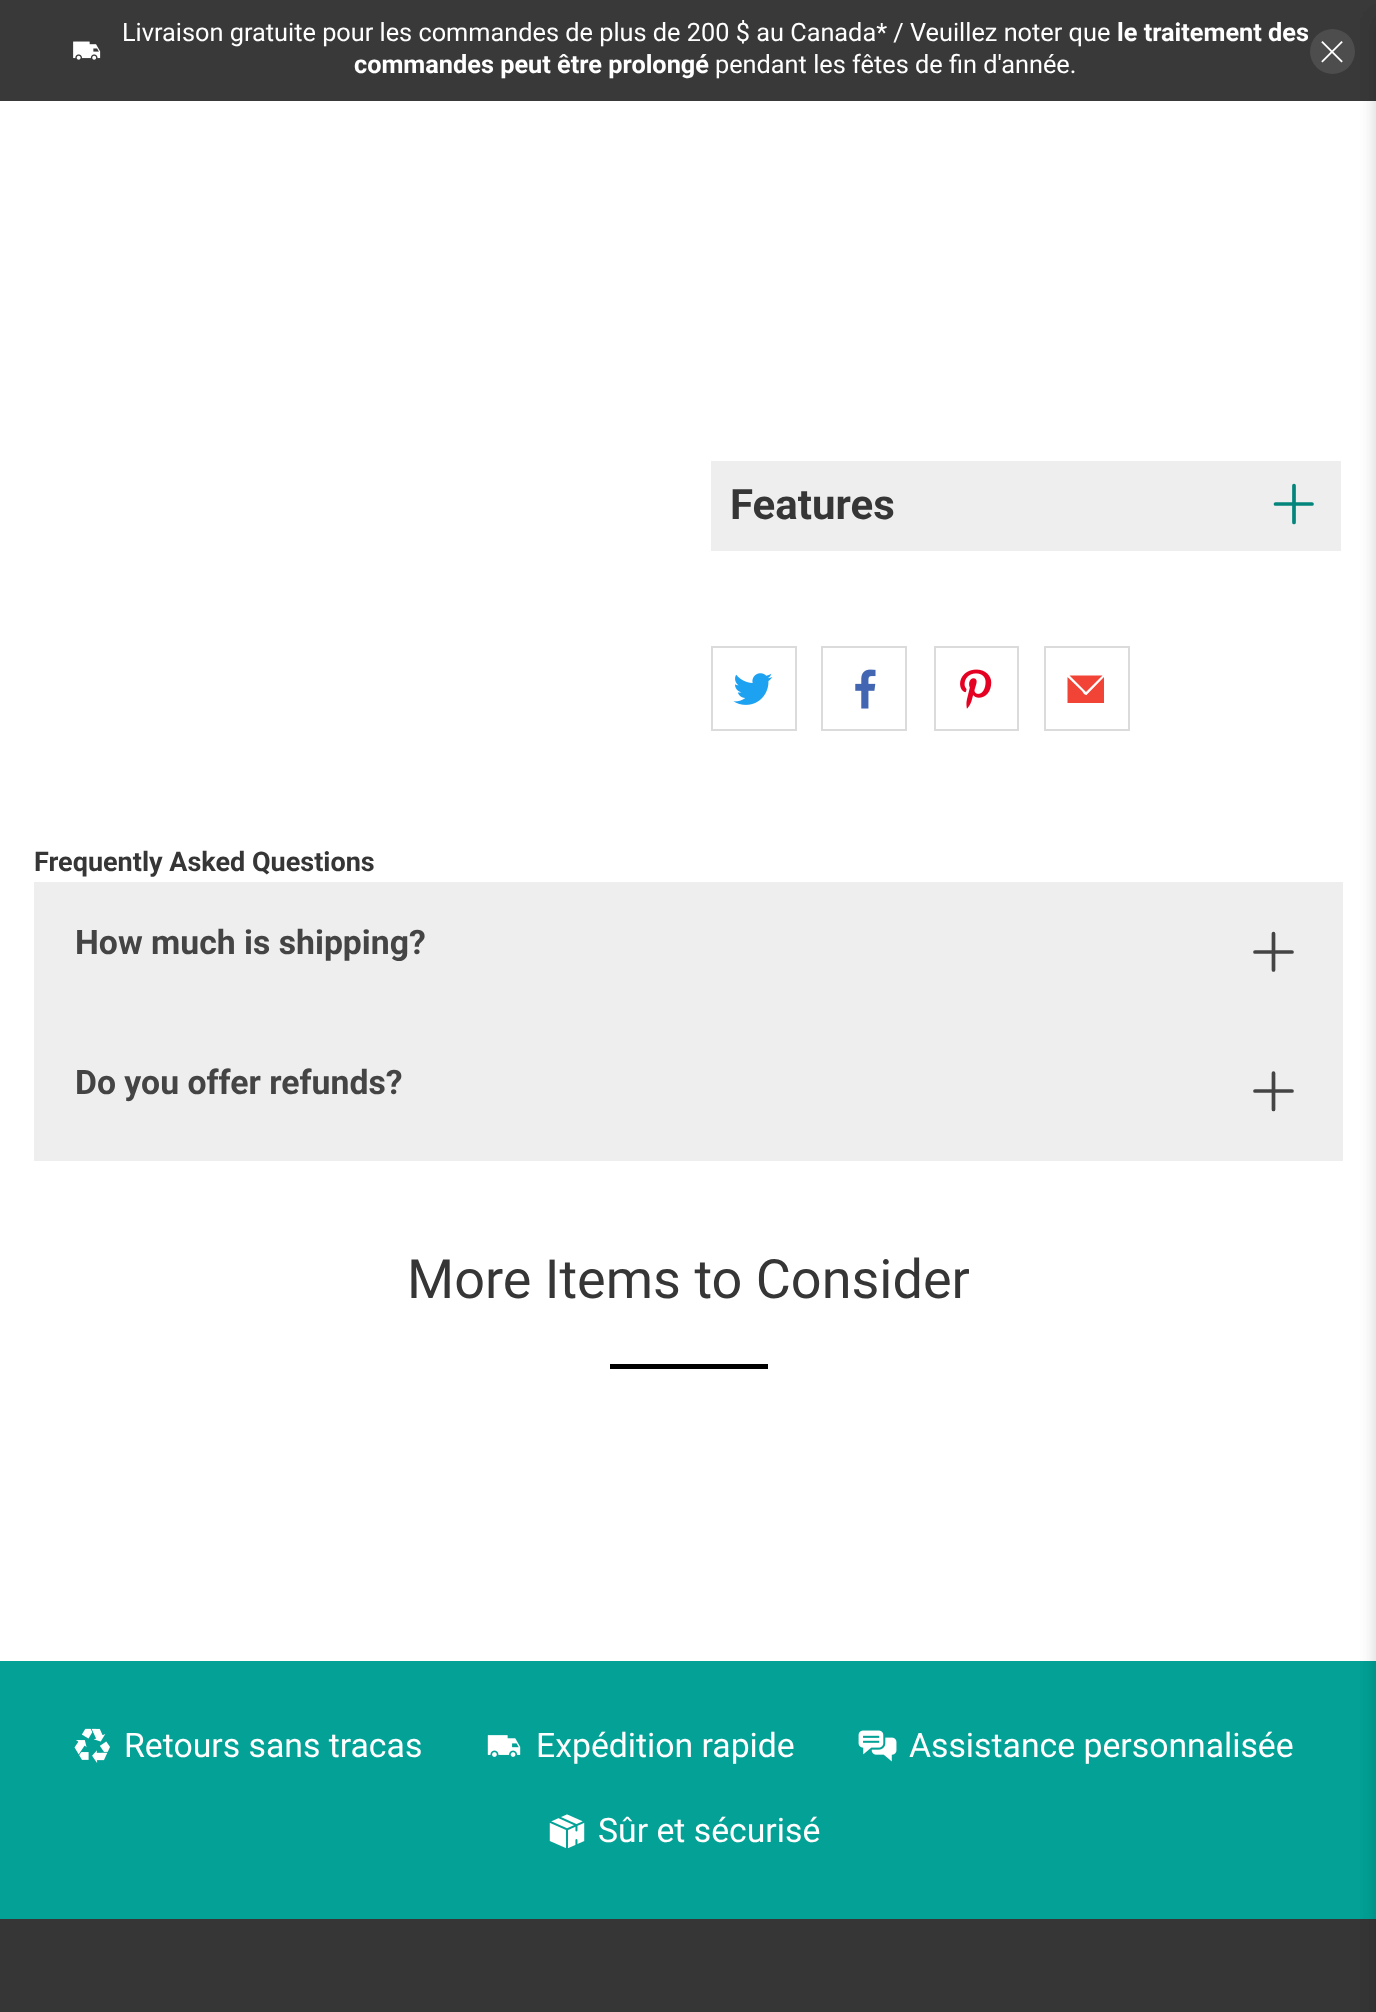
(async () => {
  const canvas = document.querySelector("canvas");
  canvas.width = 1376;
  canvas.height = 2012;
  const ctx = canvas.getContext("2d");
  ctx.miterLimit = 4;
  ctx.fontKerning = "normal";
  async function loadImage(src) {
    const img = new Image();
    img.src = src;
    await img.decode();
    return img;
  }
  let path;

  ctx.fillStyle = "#ffffff";
  ctx.fillRect(0, 0, 1376, 2012);
  ctx.fillStyle = "#393939";
  ctx.fillRect(0, 0, 1376, 101);
  ctx.fillStyle = "#4d4d4d";
  ctx.beginPath();
  ctx.arc(1332.5, 51.5, 22.5, 0, Math.PI * 2);
  ctx.fill();
  ctx.fillStyle = "#03a196";
  ctx.fillRect(0, 1661, 1376, 258);
  ctx.fillStyle = "#363636";
  ctx.fillRect(0, 1919, 1376, 93);
  ctx.fillStyle = "rgba(10, 10, 10, 0.1)";
  ctx.filter = "blur(9px)";
  ctx.beginPath();
  ctx.rect(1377, 18, 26, 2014);
  ctx.fill();
  ctx.filter = "none";
  ctx.drawImage(await loadImage("img/1.png"), 73, 41, 28, 19);
  ctx.drawImage(await loadImage("img/2.png"), 1321, 41, 22, 22);
  ctx.filter = "blur(9px)";
  ctx.beginPath();
  ctx.rect(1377, 18, 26, 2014);
  ctx.fill();
  ctx.filter = "none";
  ctx.fillStyle = "#eeeeee";
  ctx.fillRect(711, 461, 630, 90);
  path = new Path2D("M1294 485.5V522.5M1312 504H1275.5");
  ctx.strokeStyle = "#03857c";
  ctx.lineWidth = 3.7;
  ctx.lineCap = "round";
  ctx.lineJoin = "round";
  ctx.stroke(path);
  ctx.strokeStyle = "#dbdbdb";
  ctx.lineWidth = 2;
  ctx.lineJoin = "miter";
  ctx.strokeRect(712, 647, 84, 83);
  ctx.drawImage(await loadImage("img/3.png"), 733, 673, 40, 32);
  ctx.strokeRect(822, 647, 84, 83);
  ctx.drawImage(await loadImage("img/4.png"), 855, 669, 21, 40);
  ctx.strokeRect(935, 647, 83, 83);
  ctx.drawImage(await loadImage("img/5.png"), 960, 669, 32, 40);
  ctx.strokeRect(1045, 647, 84, 83);
  ctx.fillStyle = "#f14336";
  path = new Path2D("M1087 694.5C1085.5 696.5 1082.5 692 1082.5 691.5L1067.5 677V703H1104V677Z");
  ctx.fill(path);
  path = new Path2D("M1102.5 675.5H1069.5L1086 692Z");
  ctx.fill(path);
  ctx.fillStyle = "#eeeeee";
  ctx.fillRect(34, 882, 1309, 279);
  path = new Path2D("M1273.5 933.5V970M1292 952H1255");
  ctx.strokeStyle = "#444444";
  ctx.lineWidth = 3.7;
  ctx.lineJoin = "round";
  ctx.stroke(path);
  path = new Path2D("M1273.5 1073V1109.5M1292 1091H1255");
  ctx.stroke(path);
  ctx.fillStyle = "#000000";
  ctx.fillRect(610, 1364, 158, 5);
  ctx.drawImage(await loadImage("img/6.png"), 74, 1728, 36, 35);
  ctx.drawImage(await loadImage("img/7.png"), 487, 1735, 34, 22);
  ctx.drawImage(await loadImage("img/8.png"), 858, 1730, 39, 32);
  ctx.drawImage(await loadImage("img/9.png"), 549, 1814, 36, 35);
  ctx.font = "25.3px Roboto";
  ctx.fillStyle = "#ffffff";
  ctx.fillText("Livraison gratuite pour les commandes de plus de 200 $ au Canada* / Veuillez noter que", 122, 41);
  ctx.font = "bold 25.3px Roboto";
  ctx.fillText("le traitement des", 1117, 41);
  ctx.fillText("commandes peut être prolongé", 354, 73);
  ctx.font = "25.3px Roboto";
  ctx.fillText("pendant les fêtes de fin d'année.", 715, 73);
  ctx.font = "bold 42px Roboto";
  ctx.fillStyle = "#363636";
  ctx.fillText("Features", 730, 519);
  ctx.font = "bold 27px Roboto";
  ctx.fillText("Frequently Asked Questions", 34, 871);
  ctx.font = "bold 33.75px Roboto";
  ctx.fillStyle = "#444444";
  ctx.fillText("How much is shipping?", 75, 954);
  ctx.fillText("Do you offer refunds?", 75, 1094);
  ctx.font = "54px Roboto";
  ctx.fillStyle = "#363636";
  ctx.fillText("More Items to Consider", 407, 1298);
  ctx.font = "33.75px Roboto";
  ctx.fillStyle = "#ffffff";
  for (const [text, x, y] of [
    ["Retours sans tracas", 124, 1757],
    ["Expédition rapide", 536, 1757],
    ["Assistance personnalisée", 909, 1757],
    ["Sûr et sécurisé", 598, 1842],
  ]) {
    ctx.fillText(text, x, y);
  }
})();
